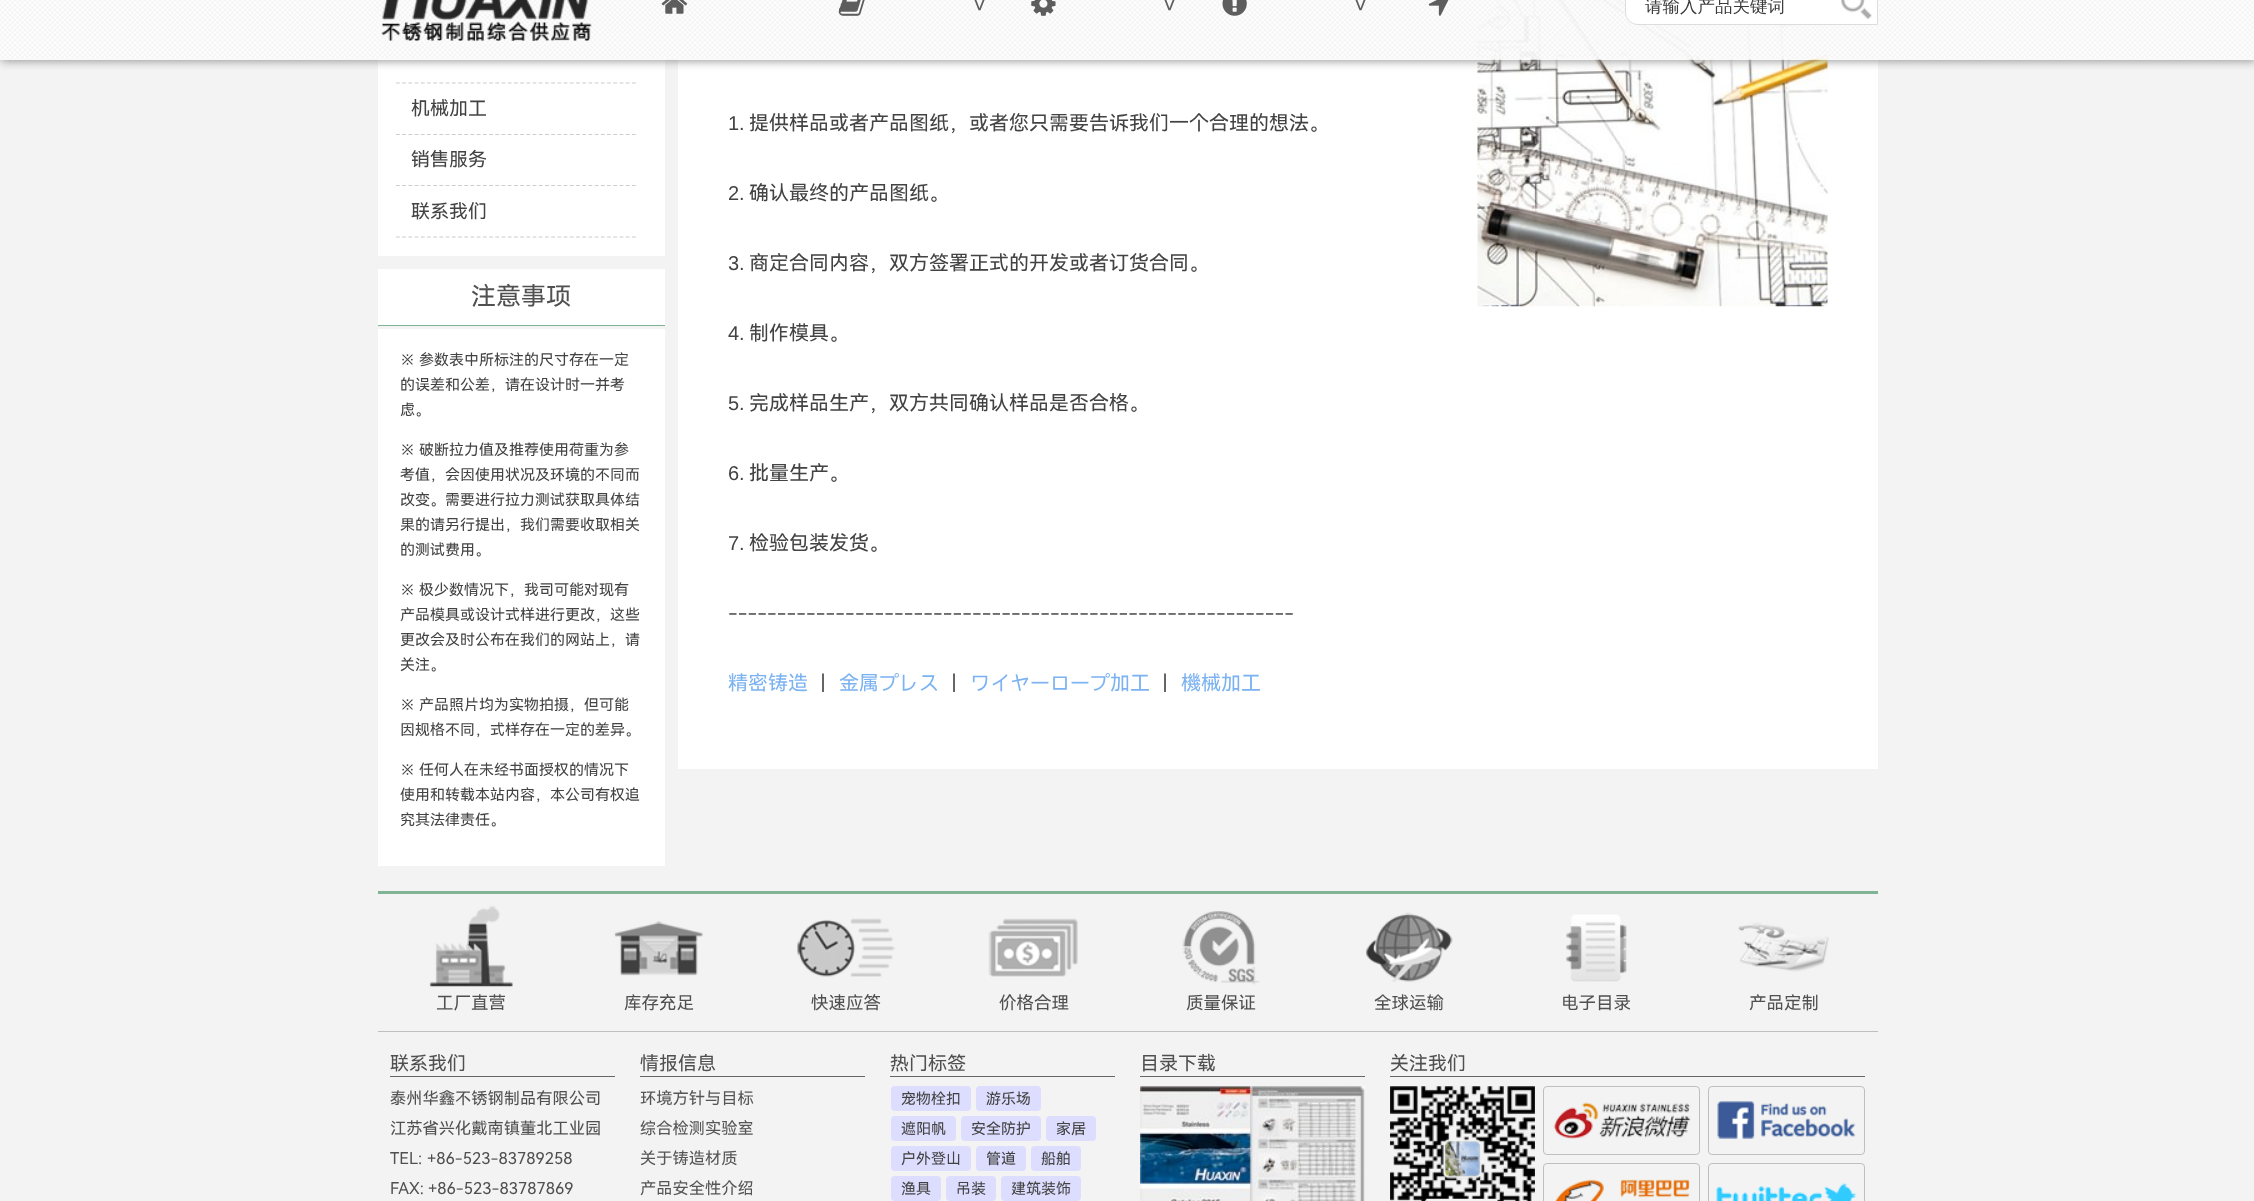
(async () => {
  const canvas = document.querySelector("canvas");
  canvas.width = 2254;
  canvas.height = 1201;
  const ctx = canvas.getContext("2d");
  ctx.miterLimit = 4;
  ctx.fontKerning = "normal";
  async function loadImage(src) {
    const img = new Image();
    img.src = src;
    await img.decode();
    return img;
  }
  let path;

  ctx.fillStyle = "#f3f3f3";
  ctx.fillRect(0, 0, 2254, 1201);
  ctx.fillStyle = "#ffffff";
  ctx.fillRect(378, 0, 287, 256);
  path = new Path2D("M396 32H636");
  ctx.strokeStyle = "#cccccc";
  ctx.lineWidth = 1.2;
  ctx.setLineDash([3.75, 2.46]);
  ctx.stroke(path);
  ctx.fillRect(678, 0, 1200, 769);
  ctx.drawImage(await loadImage("img/9.png"), 1477, 0, 351, 307);
  ctx.save();
  ctx.beginPath();
  ctx.rect(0, 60, 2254, 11);
  ctx.clip();
  ctx.fillStyle = "rgba(144, 144, 144, 0.96)";
  ctx.filter = "blur(5px)";
  ctx.beginPath();
  ctx.rect(1, -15, 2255, 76);
  ctx.fill();
  ctx.filter = "none";
  ctx.restore();
  ctx.drawImage(await loadImage("img/1.png"), 0, 0, 2254, 60);
  ctx.drawImage(await loadImage("img/2.png"), 381, 0, 211, 41);
  ctx.drawImage(await loadImage("img/3.png"), 661, 0, 27, 14);
  ctx.drawImage(await loadImage("img/4.png"), 838, 0, 27, 16);
  ctx.drawImage(await loadImage("img/5.png"), 1031, 0, 25, 16);
  ctx.drawImage(await loadImage("img/6.png"), 1222, 0, 25, 16);
  ctx.drawImage(await loadImage("img/7.png"), 1428, 0, 21, 16);
  ctx.fillStyle = "rgba(255, 255, 255, 0.96)";
  path = new Path2D("M1638-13H1878V25H1638C1631 25 1625 19 1625 12V0C1625-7 1631-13 1638-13Z");
  ctx.fill(path);
  path = new Path2D("M1638-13.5H1877.5V24.5H1638C1631 24.5 1625.5 19 1625.5 12V-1C1625.5-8 1631-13.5 1638-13.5Z");
  ctx.strokeStyle = "rgba(220, 220, 220, 0.96)";
  ctx.lineWidth = 1;
  ctx.setLineDash([]);
  ctx.stroke(path);
  ctx.drawImage(await loadImage("img/8.png"), 1841, 0, 31, 19);
  path = new Path2D("M396 83H636");
  ctx.strokeStyle = "#cccccc";
  ctx.lineWidth = 1.2;
  ctx.setLineDash([3.75, 2.46]);
  ctx.stroke(path);
  path = new Path2D("M396 134.5H636");
  ctx.stroke(path);
  path = new Path2D("M396 185.5H636");
  ctx.stroke(path);
  path = new Path2D("M396 237H636");
  ctx.stroke(path);
  for (const [x, y, w, h, color] of [
    [378, 269, 287, 56, "#ffffff"],
    [378, 325, 287, 1, "#7fb594"],
    [378, 329, 287, 537, "#ffffff"],
    [378, 891, 1500, 3, "#7fb594"],
    [378, 1031, 1500, 1, "#bfbfbf"],
  ]) {
    ctx.fillStyle = color;
    ctx.fillRect(x, y, w, h);
  }
  ctx.drawImage(await loadImage("img/10.png"), 429, 906, 84, 81);
  ctx.drawImage(await loadImage("img/11.png"), 614, 921, 89, 55);
  ctx.drawImage(await loadImage("img/12.png"), 797, 918, 98, 59);
  ctx.drawImage(await loadImage("img/13.png"), 988, 918, 90, 59);
  ctx.drawImage(await loadImage("img/14.png"), 1182, 911, 78, 74);
  ctx.drawImage(await loadImage("img/15.png"), 1366, 912, 87, 71);
  ctx.drawImage(await loadImage("img/16.png"), 1566, 914, 61, 68);
  ctx.drawImage(await loadImage("img/17.png"), 1738, 922, 91, 50);
  for (const [x, y, w, h, color] of [
    [390, 1076, 225, 1, "#666666"],
    [640, 1076, 225, 1, "#666666"],
    [890, 1076, 225, 1, "#666666"],
  ]) {
    ctx.fillStyle = color;
    ctx.fillRect(x, y, w, h);
  }
  ctx.fillStyle = "#ddddff";
  ctx.beginPath();
  ctx.roundRect(891, 1086, 80, 25, 4);
  ctx.fill();
  ctx.beginPath();
  ctx.roundRect(976, 1086, 65, 25, 4);
  ctx.fill();
  ctx.beginPath();
  ctx.roundRect(891, 1116, 65, 25, 4);
  ctx.fill();
  ctx.beginPath();
  ctx.roundRect(961, 1116, 80, 25, 4);
  ctx.fill();
  ctx.beginPath();
  ctx.roundRect(1046, 1116, 50, 25, 4);
  ctx.fill();
  ctx.beginPath();
  ctx.roundRect(891, 1146, 80, 25, 4);
  ctx.fill();
  ctx.beginPath();
  ctx.roundRect(976, 1146, 50, 25, 4);
  ctx.fill();
  ctx.beginPath();
  ctx.roundRect(1031, 1146, 50, 25, 4);
  ctx.fill();
  ctx.beginPath();
  ctx.roundRect(891, 1176, 50, 25, 4);
  ctx.fill();
  ctx.beginPath();
  ctx.roundRect(946, 1176, 50, 25, 4);
  ctx.fill();
  ctx.beginPath();
  ctx.roundRect(1001, 1176, 80, 25, 4);
  ctx.fill();
  ctx.fillStyle = "#666666";
  ctx.fillRect(1140, 1076, 225, 1);
  ctx.drawImage(await loadImage("img/18.png"), 1140, 1086, 225, 115);
  ctx.fillRect(1390, 1076, 475, 1);
  ctx.drawImage(await loadImage("img/19.png"), 1390, 1086, 145, 115);
  ctx.beginPath();
  ctx.roundRect(1543.5, 1086.5, 156, 68, 3.5);
  ctx.strokeStyle = "#bfbfbf";
  ctx.lineWidth = 1;
  ctx.setLineDash([]);
  ctx.stroke();
  ctx.drawImage(await loadImage("img/20.png"), 1553, 1102, 138, 37);
  ctx.beginPath();
  ctx.roundRect(1708.5, 1086.5, 156, 68, 3.5);
  ctx.stroke();
  ctx.drawImage(await loadImage("img/21.png"), 1717, 1101, 139, 38);
  ctx.beginPath();
  ctx.roundRect(1543.5, 1163.5, 156, 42, 3.5);
  ctx.stroke();
  ctx.drawImage(await loadImage("img/22.png"), 1555, 1179, 135, 22);
  ctx.beginPath();
  ctx.roundRect(1708.5, 1163.5, 156, 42, 3.5);
  ctx.stroke();
  ctx.drawImage(await loadImage("img/23.png"), 1716, 1182, 141, 19);
  ctx.font = "21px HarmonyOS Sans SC";
  ctx.fillStyle = "#5e5d5d";
  for (const [text, x, y] of [
    ["∨", 969, 11],
    ["∨", 1159, 11],
    ["∨", 1350, 11],
  ]) {
    ctx.fillText(text, x, y);
  }
  ctx.font = "500 17.5px WenQuanYi Zen Hei";
  ctx.fillStyle = "#3b3b3b";
  ctx.fillText("请输入产品关键词", 1645, 12);
  ctx.font = "19px HarmonyOS Sans SC";
  ctx.fillStyle = "#434343";
  for (const [text, x, y] of [
    ["机械加工", 411, 115],
    ["销售服务", 411, 166],
    ["联系我们", 411, 218],
  ]) {
    ctx.fillText(text, x, y);
  }
  ctx.font = "25px HarmonyOS Sans SC";
  ctx.fillStyle = "#505050";
  ctx.fillText("注意事项", 471, 305);
  ctx.font = "15px HarmonyOS Sans SC";
  ctx.fillStyle = "#434343";
  for (const [text, x, y] of [
    ["※", 400, 365],
    ["参数表中所标注的尺寸存在一定", 419, 365],
    ["的误差和公差，请在设计时一并考", 400, 390],
    ["虑。", 400, 415],
    ["※", 400, 455],
    ["破断拉力值及推荐使用荷重为参", 419, 455],
    ["考值，会因使用状况及环境的不同而", 400, 480],
    ["改变。需要进行拉力测试获取具体结", 400, 505],
    ["果的请另行提出，我们需要收取相关", 400, 530],
    ["的测试费用。", 400, 555],
    ["※", 400, 595],
    ["极少数情况下，我司可能对现有", 419, 595],
    ["产品模具或设计式样进行更改，这些", 400, 620],
    ["更改会及时公布在我们的网站上，请", 400, 645],
    ["关注。", 400, 670],
    ["※", 400, 710],
    ["产品照片均为实物拍摄，但可能", 419, 710],
    ["因规格不同，式样存在一定的差异。", 400, 735],
    ["※", 400, 775],
    ["任何人在未经书面授权的情况下", 419, 775],
    ["使用和转载本站内容，本公司有权追", 400, 800],
    ["究其法律责任。", 400, 825],
  ]) {
    ctx.fillText(text, x, y);
  }
  ctx.font = "20px Liberation Sans";
  ctx.fillText("1.", 728, 130);
  ctx.font = "20px HarmonyOS Sans SC";
  ctx.fillText("提供样品或者产品图纸，或者您只需要告诉我们一个合理的想法。", 749, 130);
  ctx.font = "20px Liberation Sans";
  ctx.fillText("2.", 728, 200);
  ctx.font = "20px HarmonyOS Sans SC";
  ctx.fillText("确认最终的产品图纸。", 749, 200);
  ctx.font = "20px Liberation Sans";
  ctx.fillText("3.", 728, 270);
  ctx.font = "20px HarmonyOS Sans SC";
  ctx.fillText("商定合同内容，双方签署正式的开发或者订货合同。", 749, 270);
  ctx.font = "20px Liberation Sans";
  ctx.fillText("4.", 728, 340);
  ctx.font = "20px HarmonyOS Sans SC";
  ctx.fillText("制作模具。", 749, 340);
  ctx.font = "20px Liberation Sans";
  ctx.fillText("5.", 728, 410);
  ctx.font = "20px HarmonyOS Sans SC";
  ctx.fillText("完成样品生产，双方共同确认样品是否合格。", 749, 410);
  ctx.font = "20px Liberation Sans";
  ctx.fillText("6.", 728, 480);
  ctx.font = "20px HarmonyOS Sans SC";
  ctx.fillText("批量生产。", 749, 480);
  ctx.font = "20px Liberation Sans";
  ctx.fillText("7.", 728, 550);
  ctx.font = "20px HarmonyOS Sans SC";
  ctx.fillText("检验包装发货。", 749, 550);
  ctx.fillText("----------------------------------------------------------", 728, 620);
  ctx.fillStyle = "#7bb2f1";
  ctx.fillText("精密铸造", 728, 690);
  ctx.fillStyle = "#434343";
  ctx.fillText("｜", 813, 690);
  ctx.fillStyle = "#7bb2f1";
  ctx.fillText("金属プレス", 839, 690);
  ctx.fillStyle = "#434343";
  ctx.fillText("｜", 944, 690);
  ctx.fillStyle = "#7bb2f1";
  ctx.fillText("ワイヤーロープ加工", 970, 690);
  ctx.fillStyle = "#434343";
  ctx.fillText("｜", 1155, 690);
  ctx.fillStyle = "#7bb2f1";
  ctx.fillText("機械加工", 1181, 690);
  ctx.font = "17.5px HarmonyOS Sans SC";
  ctx.fillStyle = "#505050";
  for (const [text, x, y] of [
    ["工厂直营", 436, 1009],
    ["库存充足", 624, 1009],
    ["快速应答", 811, 1009],
    ["价格合理", 999, 1009],
    ["质量保证", 1186, 1009],
    ["全球运输", 1374, 1009],
    ["电子目录", 1561, 1009],
    ["产品定制", 1749, 1009],
  ]) {
    ctx.fillText(text, x, y);
  }
  ctx.font = "19px HarmonyOS Sans SC";
  ctx.fillText("联系我们", 390, 1070);
  ctx.font = "16.25px HarmonyOS Sans SC";
  for (const [text, x, y] of [
    ["泰州华鑫不锈钢制品有限公司", 390, 1104],
    ["江苏省兴化戴南镇董北工业园", 390, 1134],
    ["TEL:", 390, 1164],
    ["+86-523-83789258", 427, 1164],
    ["FAX:", 390, 1194],
    ["+86-523-83787869", 428, 1194],
  ]) {
    ctx.fillText(text, x, y);
  }
  ctx.font = "19px HarmonyOS Sans SC";
  ctx.fillText("情报信息", 640, 1070);
  ctx.font = "16.25px HarmonyOS Sans SC";
  ctx.fillStyle = "#575656";
  for (const [text, x, y] of [
    ["环境方针与目标", 640, 1104],
    ["综合检测实验室", 640, 1134],
    ["关于铸造材质", 640, 1164],
    ["产品安全性介绍", 640, 1194],
  ]) {
    ctx.fillText(text, x, y);
  }
  ctx.font = "19px HarmonyOS Sans SC";
  ctx.fillStyle = "#505050";
  ctx.fillText("热门标签", 890, 1070);
  ctx.font = "15px HarmonyOS Sans SC";
  ctx.fillStyle = "#434343";
  for (const [text, x, y] of [
    ["宠物栓扣", 901, 1104],
    ["游乐场", 986, 1104],
    ["遮阳帆", 901, 1134],
    ["安全防护", 971, 1134],
    ["家居", 1056, 1134],
    ["户外登山", 901, 1164],
    ["管道", 986, 1164],
    ["船舶", 1041, 1164],
    ["渔具", 901, 1194],
    ["吊装", 956, 1194],
    ["建筑装饰", 1011, 1194],
  ]) {
    ctx.fillText(text, x, y);
  }
  ctx.font = "19px HarmonyOS Sans SC";
  ctx.fillStyle = "#505050";
  ctx.fillText("目录下载", 1140, 1070);
  ctx.fillText("关注我们", 1390, 1070);
})();
